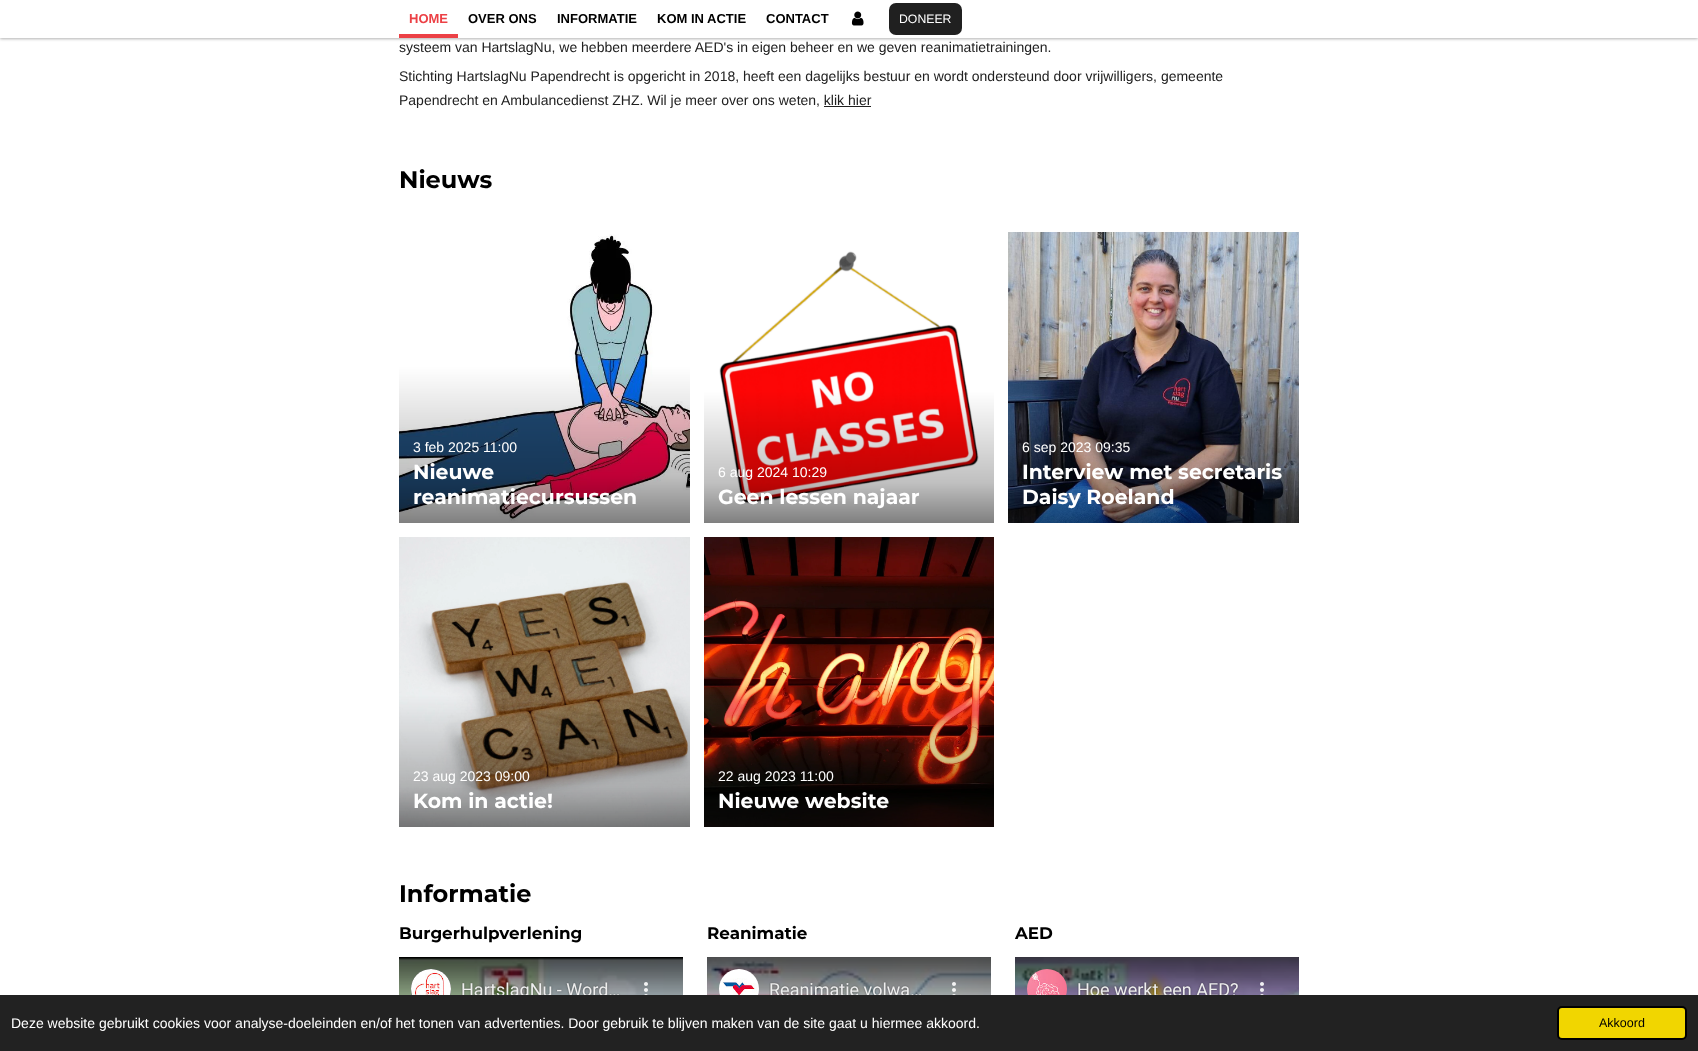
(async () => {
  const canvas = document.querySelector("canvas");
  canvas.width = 1698;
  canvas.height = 1051;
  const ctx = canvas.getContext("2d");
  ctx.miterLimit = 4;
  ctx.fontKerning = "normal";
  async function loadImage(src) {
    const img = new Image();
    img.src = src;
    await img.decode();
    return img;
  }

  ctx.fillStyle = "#ffffff";
  ctx.fillRect(0, 0, 1698, 1051);
  ctx.fillStyle = "rgba(0, 0, 0, 0.3)";
  ctx.filter = "blur(1.5px)";
  ctx.beginPath();
  ctx.rect(0, -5, 1698, 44);
  ctx.fill();
  ctx.filter = "none";
  ctx.fillStyle = "#ffffff";
  ctx.fillRect(0, 0, 1698, 38);
  ctx.fillStyle = "#ec4146";
  ctx.fillRect(399, 34, 59, 4);
  ctx.drawImage(await loadImage("img/1.png"), 851, 11, 13, 15);
  ctx.fillStyle = "#202020";
  ctx.beginPath();
  ctx.roundRect(889, 3, 73, 32, 7);
  ctx.fill();
  ctx.fillRect(824, 106, 47, 1);
  ctx.drawImage(await loadImage("img/2.png"), 399, 232, 291, 291);
  ctx.drawImage(await loadImage("img/3.png"), 704, 232, 290, 291);
  ctx.drawImage(await loadImage("img/4.png"), 1008, 232, 291, 291);
  ctx.drawImage(await loadImage("img/5.png"), 399, 537, 291, 290);
  ctx.drawImage(await loadImage("img/6.png"), 704, 537, 290, 290);
  ctx.drawImage(await loadImage("img/7.png"), 399, 957, 284, 38);
  ctx.drawImage(await loadImage("img/8.png"), 707, 957, 284, 38);
  ctx.drawImage(await loadImage("img/9.png"), 1015, 957, 284, 38);
  ctx.fillStyle = "#222222";
  ctx.fillRect(0, 995, 1698, 56);
  ctx.fillStyle = "#f1d600";
  ctx.beginPath();
  ctx.roundRect(1558, 1007, 128, 32, 4);
  ctx.fill();
  ctx.strokeStyle = "#000000";
  ctx.lineWidth = 2;
  ctx.stroke();
  ctx.font = "bold 13px Liberation Sans";
  ctx.fillStyle = "#ec4146";
  ctx.fillText("HOME", 409, 23);
  ctx.fillStyle = "#000000";
  for (const [text, x, y] of [
    ["OVER ONS", 468, 23],
    ["INFORMATIE", 557, 23],
    ["KOM IN ACTIE", 657, 23],
    ["CONTACT", 766, 23],
  ]) {
    ctx.fillText(text, x, y);
  }
  ctx.font = "12.25px Liberation Sans";
  ctx.fillStyle = "#ffffff";
  ctx.fillText("DONEER", 899, 23);
  ctx.font = "14px Liberation Sans";
  ctx.fillStyle = "#202020";
  for (const [text, x, y] of [
    ["systeem van HartslagNu, we hebben meerdere AED's in eigen beheer en we geven reanimatietrainingen.", 399, 52],
    ["Stichting HartslagNu Papendrecht is opgericht in 2018, heeft een dagelijks bestuur en wordt ondersteund door vrijwilligers, gemeente", 399, 81],
    ["Papendrecht en Ambulancedienst ZHZ. Wil je meer over ons weten, klik hier", 399, 105],
  ]) {
    ctx.fillText(text, x, y);
  }
  ctx.font = "bold 24px Montserrat";
  ctx.fillStyle = "#000000";
  ctx.fillText("Nieuws", 399, 188);
  ctx.font = "14px Liberation Sans";
  ctx.fillStyle = "#ffffff";
  ctx.fillText("3 feb 2025 11:00", 413, 452);
  ctx.font = "bold 20.4px Montserrat";
  ctx.fillText("Nieuwe", 413, 479);
  ctx.fillText("reanimatiecursussen", 413, 504);
  ctx.font = "14px Liberation Sans";
  ctx.fillText("6 aug 2024 10:29", 718, 477);
  ctx.font = "bold 20.4px Montserrat";
  ctx.fillText("Geen lessen najaar", 718, 504);
  ctx.font = "14px Liberation Sans";
  ctx.fillText("6 sep 2023 09:35", 1022, 452);
  ctx.font = "bold 20.4px Montserrat";
  ctx.fillText("Interview met secretaris", 1022, 479);
  ctx.fillText("Daisy Roeland", 1022, 504);
  ctx.font = "14px Liberation Sans";
  ctx.fillText("23 aug 2023 09:00", 413, 781);
  ctx.font = "bold 20.4px Montserrat";
  ctx.fillText("Kom in actie!", 413, 808);
  ctx.font = "14px Liberation Sans";
  ctx.fillText("22 aug 2023 11:00", 718, 781);
  ctx.font = "bold 20.4px Montserrat";
  ctx.fillText("Nieuwe website", 718, 808);
  ctx.font = "bold 24px Montserrat";
  ctx.fillStyle = "#000000";
  ctx.fillText("Informatie", 399, 902);
  ctx.font = "bold 16.75px Montserrat";
  for (const [text, x, y] of [
    ["Burgerhulpverlening", 399, 939],
    ["Reanimatie", 707, 939],
    ["AED", 1015, 939],
  ]) {
    ctx.fillText(text, x, y);
  }
  ctx.font = "14px Liberation Sans";
  ctx.fillStyle = "#ffffff";
  ctx.fillText("Deze website gebruikt cookies voor analyse-doeleinden en/of het tonen van advertenties. Door gebruik te blijven maken van de site gaat u hiermee akkoord.", 11, 1028);
  ctx.font = "12.5px Liberation Sans";
  ctx.fillStyle = "#000000";
  ctx.fillText("Akkoord", 1599, 1027);
})();
